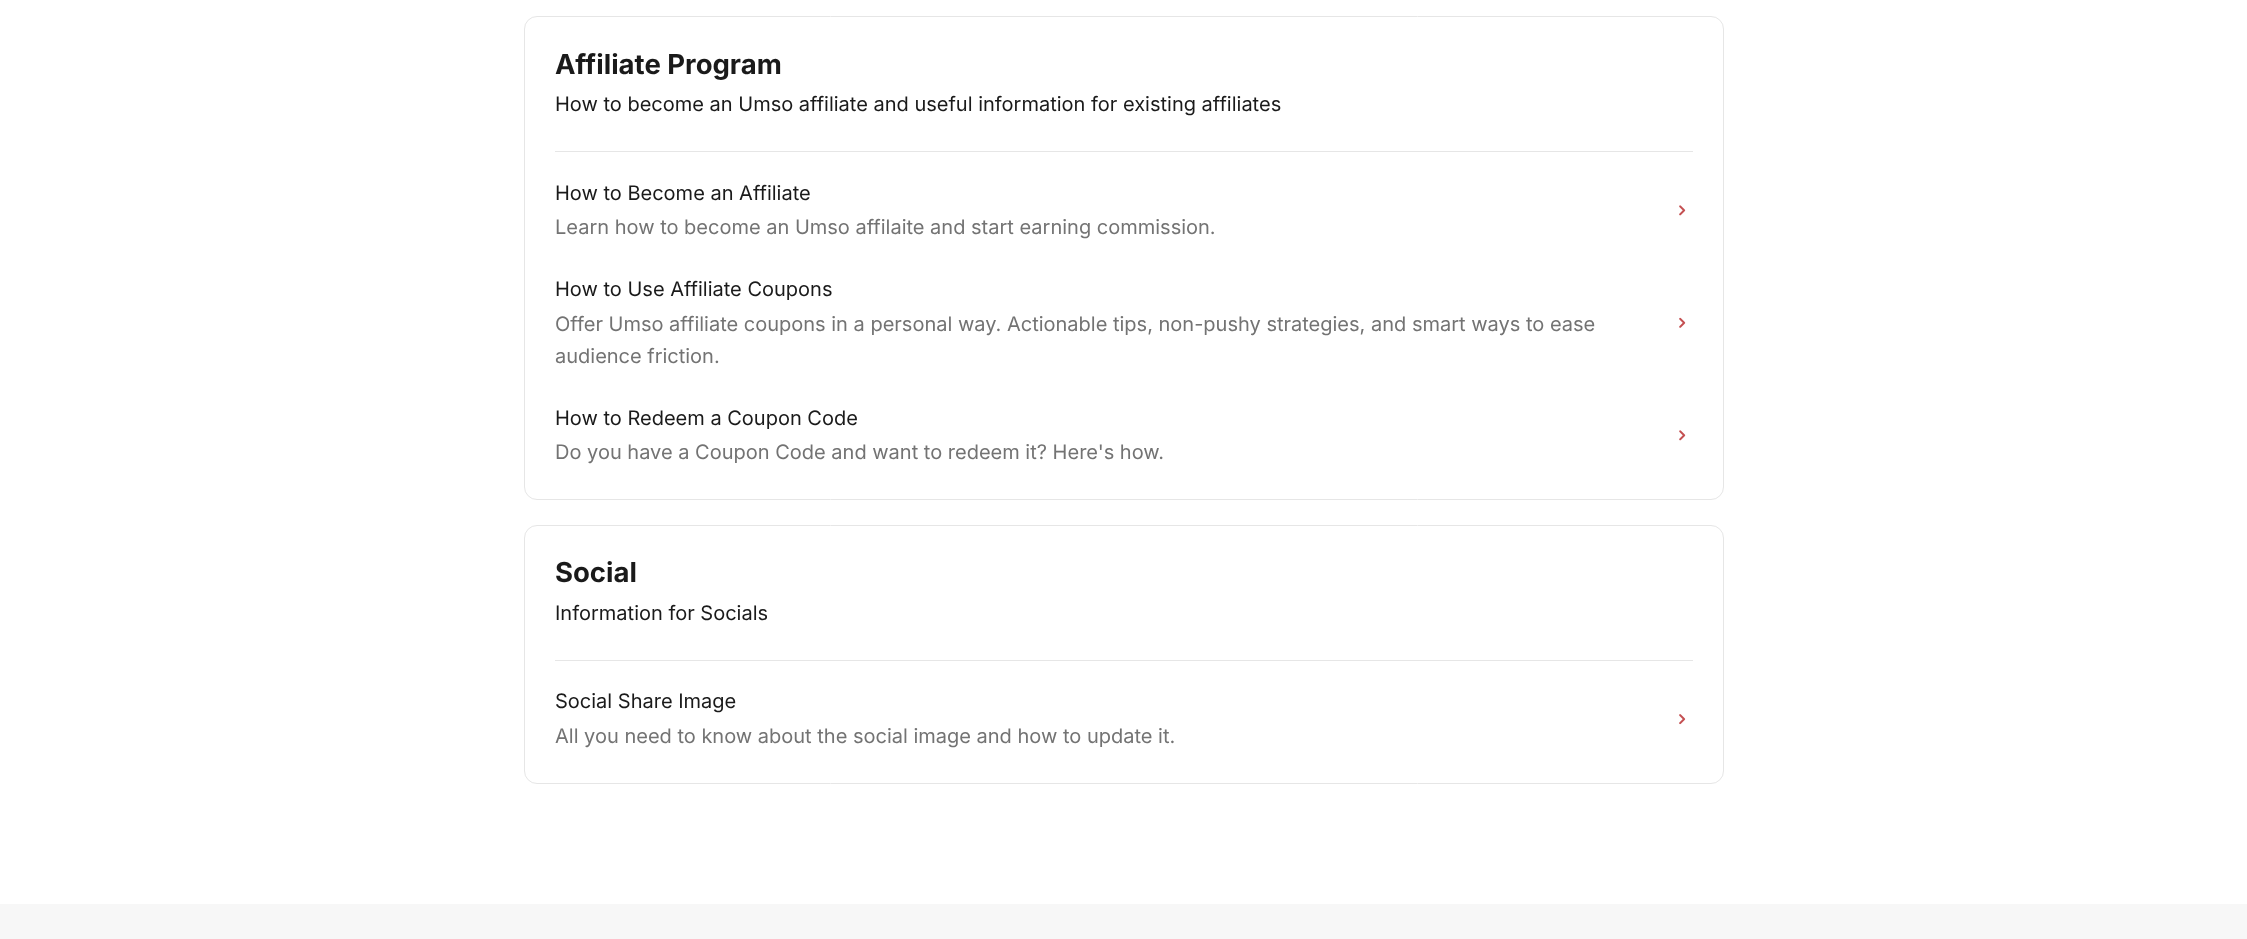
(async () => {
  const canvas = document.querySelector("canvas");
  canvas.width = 2247;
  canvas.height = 939;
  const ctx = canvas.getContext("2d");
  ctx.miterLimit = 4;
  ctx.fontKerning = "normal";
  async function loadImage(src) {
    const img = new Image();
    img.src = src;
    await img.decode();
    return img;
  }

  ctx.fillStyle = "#ffffff";
  ctx.fillRect(0, 0, 2247, 939);
  ctx.beginPath();
  ctx.roundRect(524.5, 16.5, 1199, 483, 12.5);
  ctx.strokeStyle = "#e6e6e6";
  ctx.stroke();
  ctx.fillStyle = "#e6e6e6";
  ctx.fillRect(555, 151, 1138, 1);
  ctx.drawImage(await loadImage("img/1.png"), 1679, 205, 7, 11);
  ctx.drawImage(await loadImage("img/2.png"), 1679, 317, 7, 11);
  ctx.drawImage(await loadImage("img/3.png"), 1679, 430, 7, 11);
  ctx.beginPath();
  ctx.roundRect(524.5, 525.5, 1199, 258, 12.5);
  ctx.stroke();
  ctx.fillRect(555, 660, 1138, 1);
  ctx.drawImage(await loadImage("img/4.png"), 1679, 714, 7, 11);
  ctx.fillStyle = "#f7f7f7";
  ctx.fillRect(0, 904, 2247, 35);
  ctx.font = "bold 27.5px Inter";
  ctx.fillStyle = "#1a1a1a";
  ctx.fillText("Affiliate Program", 555, 74);
  ctx.font = "20px Inter";
  ctx.fillText("How to become an Umso affiliate and useful information for existing affiliates", 555, 111);
  ctx.fillText("How to Become an Affiliate", 555, 200);
  ctx.fillStyle = "#737373";
  ctx.fillText("Learn how to become an Umso affilaite and start earning commission.", 555, 234);
  ctx.fillStyle = "#1a1a1a";
  ctx.fillText("How to Use Affiliate Coupons", 555, 296);
  ctx.fillStyle = "#737373";
  ctx.fillText("Offer Umso affiliate coupons in a personal way. Actionable tips, non-pushy strategies, and smart ways to ease", 555, 331);
  ctx.fillText("audience friction.", 555, 363);
  ctx.fillStyle = "#1a1a1a";
  ctx.fillText("How to Redeem a Coupon Code", 555, 425);
  ctx.fillStyle = "#737373";
  ctx.fillText("Do you have a Coupon Code and want to redeem it? Here's how.", 555, 459);
  ctx.font = "bold 27.5px Inter";
  ctx.fillStyle = "#1a1a1a";
  ctx.fillText("Social", 555, 582);
  ctx.font = "20px Inter";
  ctx.fillText("Information for Socials", 555, 620);
  ctx.fillText("Social Share Image", 555, 708);
  ctx.fillStyle = "#737373";
  ctx.fillText("All you need to know about the social image and how to update it.", 555, 743);
})();
